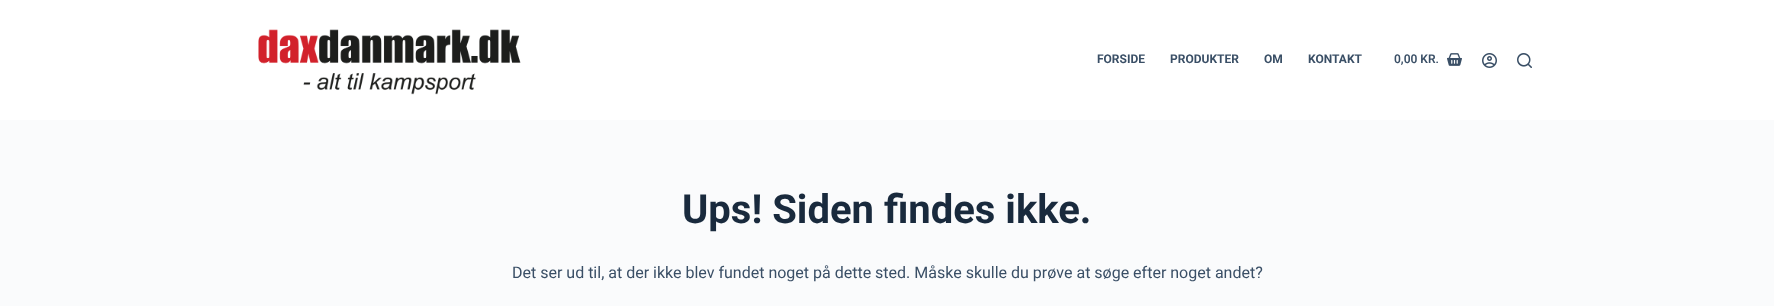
(async () => {
  const canvas = document.querySelector("canvas");
  canvas.width = 1774;
  canvas.height = 306;
  const ctx = canvas.getContext("2d");
  ctx.miterLimit = 4;
  ctx.fontKerning = "normal";
  async function loadImage(src) {
    const img = new Image();
    img.src = src;
    await img.decode();
    return img;
  }

  ctx.fillStyle = "#fafbfc";
  ctx.fillRect(0, 0, 1774, 306);
  ctx.fillStyle = "#ffffff";
  ctx.fillRect(0, 0, 1774, 120);
  ctx.drawImage(await loadImage("img/1.png"), 258, 29, 263, 66);
  ctx.drawImage(await loadImage("img/2.png"), 1447, 53, 15, 13);
  ctx.drawImage(await loadImage("img/3.png"), 1482, 53, 15, 15);
  ctx.drawImage(await loadImage("img/4.png"), 1517, 53, 15, 15);
  ctx.font = "bold 12px Roboto";
  ctx.fillStyle = "#3a4f66";
  for (const [text, x, y] of [
    ["FORSIDE", 1097, 63],
    ["PRODUKTER", 1170, 63],
    ["OM", 1264, 63],
    ["KONTAKT", 1308, 63],
  ]) {
    ctx.fillText(text, x, y);
  }
  ctx.font = "600 12px Roboto";
  ctx.fillText("0,00 KR.", 1394, 63);
  ctx.font = "bold 40px Roboto";
  ctx.fillStyle = "#192a3d";
  ctx.fillText("Ups! Siden findes ikke.", 682, 223);
  ctx.font = "16px Roboto";
  ctx.fillStyle = "#3a4f66";
  ctx.fillText("Det ser ud til, at der ikke blev fundet noget på dette sted. Måske skulle du prøve at søge efter noget andet?", 512, 278);
})();
